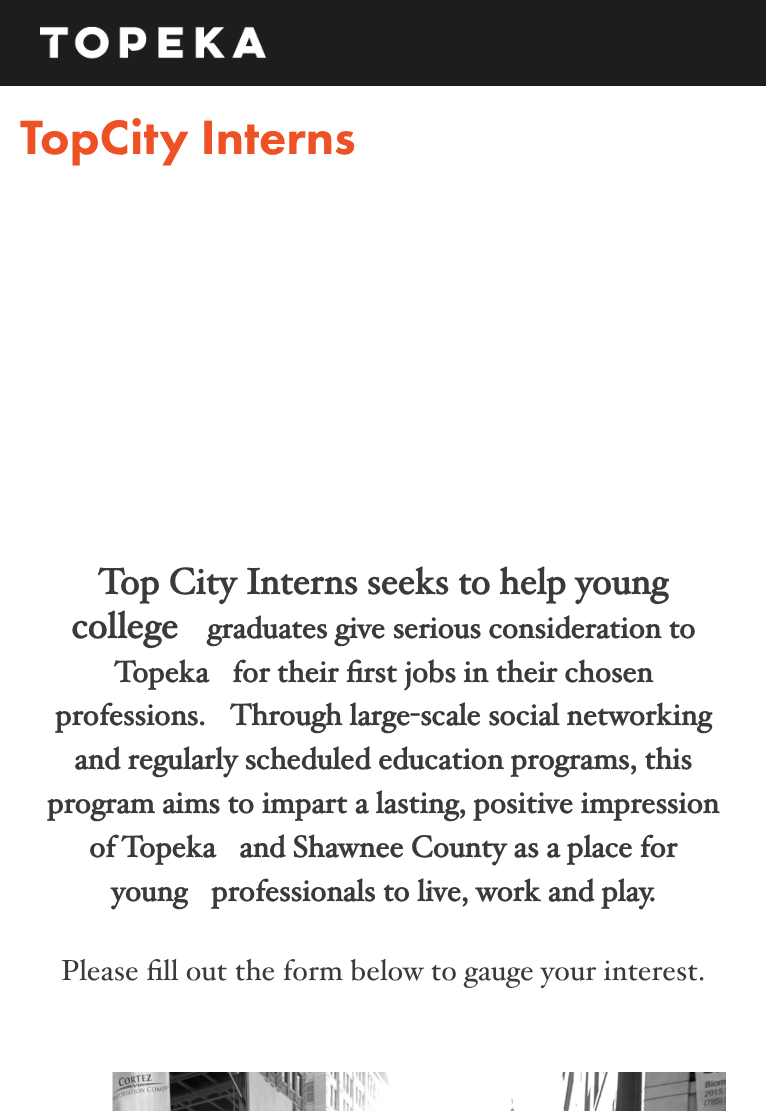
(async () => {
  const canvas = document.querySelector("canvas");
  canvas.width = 766;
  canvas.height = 1111;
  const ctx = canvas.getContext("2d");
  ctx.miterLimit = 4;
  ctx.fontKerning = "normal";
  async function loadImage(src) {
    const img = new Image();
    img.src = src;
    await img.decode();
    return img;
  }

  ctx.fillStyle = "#ffffff";
  ctx.fillRect(0, 0, 766, 1111);
  ctx.fillStyle = "#1d1d1d";
  ctx.fillRect(0, 0, 766, 86);
  ctx.drawImage(await loadImage("img/1.png"), 40, 26, 226, 33);
  ctx.drawImage(await loadImage("img/2.png"), 112, 1072, 614, 39);
  ctx.font = "900 50px Futura PT";
  ctx.fillStyle = "#ee5123";
  ctx.fillText("TopCity Interns", 20, 154);
  ctx.font = "bold 36.5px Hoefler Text";
  ctx.fillStyle = "#3a3a3a";
  ctx.fillText("Top City Interns seeks to help young", 98, 594);
  ctx.fillText("college", 71, 638);
  ctx.font = "bold 30px Hoefler Text";
  for (const [text, x, y] of [
    ["graduates give serious consideration to", 207, 638],
    ["Topeka", 114, 682],
    ["for their first jobs in their chosen", 232, 682],
    ["professions.", 55, 725],
    ["Through large-scale social networking", 230, 725],
    ["and regularly scheduled education programs, this", 74, 769],
    ["program aims to impart a lasting, positive impression", 47, 813],
    ["of Topeka", 89, 857],
    ["and Shawnee County as a place for", 239, 857],
    ["young", 111, 901],
    ["professionals to live, work and play.", 211, 901],
  ]) {
    ctx.fillText(text, x, y);
  }
  ctx.font = "29.2px Hoefler Text";
  ctx.fillText("Please fill out the form below to gauge your interest.", 61, 980);
})();
